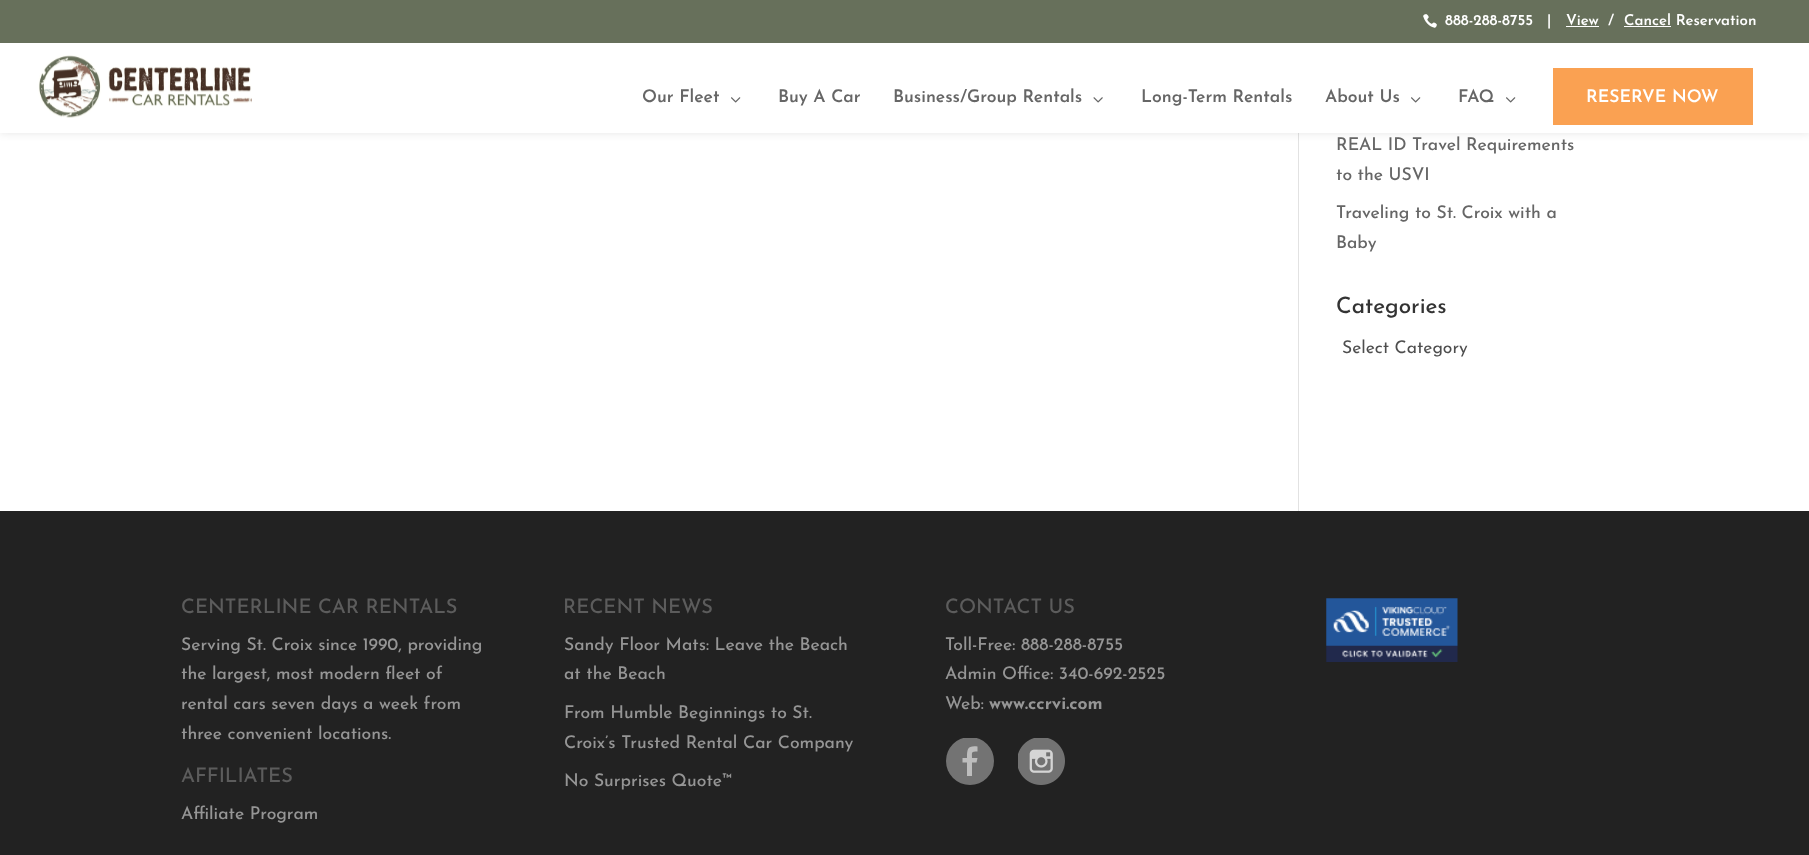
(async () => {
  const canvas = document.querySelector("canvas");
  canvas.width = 1809;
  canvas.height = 855;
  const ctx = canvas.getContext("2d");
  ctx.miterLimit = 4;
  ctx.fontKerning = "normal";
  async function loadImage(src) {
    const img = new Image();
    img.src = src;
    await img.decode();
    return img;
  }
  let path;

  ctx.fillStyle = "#ffffff";
  ctx.fillRect(0, 0, 1809, 855);
  ctx.fillStyle = "#e2e2e2";
  ctx.fillRect(1298, 133, 1, 378);
  ctx.fillStyle = "rgba(0, 0, 0, 0.1)";
  ctx.filter = "blur(4.5px)";
  ctx.beginPath();
  ctx.rect(0, 43, 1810, 90);
  ctx.fill();
  ctx.filter = "none";
  ctx.fillStyle = "#67705b";
  ctx.fillRect(0, 0, 1809, 43);
  ctx.drawImage(await loadImage("img/1.png"), 1423, 14, 14, 14);
  for (const [x, y, w, h, color] of [
    [1566, 26, 33, 1, "#ffffff"],
    [1624, 26, 47, 1, "#ffffff"],
    [0, 43, 1809, 90, "#ffffff"],
  ]) {
    ctx.fillStyle = color;
    ctx.fillRect(x, y, w, h);
  }
  ctx.drawImage(await loadImage("img/2.png"), 38, 55, 214, 63);
  ctx.drawImage(await loadImage("img/3.png"), 731, 97, 10, 6);
  ctx.drawImage(await loadImage("img/4.png"), 1093, 97, 10, 6);
  ctx.drawImage(await loadImage("img/3.png"), 1411, 97, 10, 6);
  ctx.drawImage(await loadImage("img/3.png"), 1506, 97, 10, 6);
  ctx.fillStyle = "#faa152";
  ctx.fillRect(1553, 68, 200, 57);
  ctx.fillStyle = "#222222";
  ctx.fillRect(0, 511, 1809, 344);
  ctx.save();
  ctx.beginPath();
  ctx.rect(946, 738, 48, 47);
  ctx.clip();
  ctx.fillStyle = "#737373";
  ctx.beginPath();
  ctx.arc(970, 761, 24, 0, Math.PI * 2);
  ctx.fill();
  ctx.restore();
  ctx.fillStyle = "#bdbdbd";
  path = new Path2D("M967 776V762.5H962.5V758H967C967 749 967.5 745.5 977.5 746.5V751.5C971 751.5 972 752 972 758H977.5L976.5 762.5H972V776Z");
  ctx.fill(path);
  ctx.drawImage(await loadImage("img/5.png"), 1018, 738, 47, 47);
  ctx.drawImage(await loadImage("img/6.png"), 1326, 598, 132, 64);
  ctx.font = "600 15px Josefin Sans";
  ctx.fillStyle = "#ffffff";
  for (const [text, x, y] of [
    ["888-288-8755", 1445, 25],
    ["|", 1547, 25],
    ["View", 1566, 25],
    ["/", 1608, 25],
    ["Cancel Reservation", 1624, 25],
  ]) {
    ctx.fillText(text, x, y);
  }
  ctx.font = "600 17.5px Josefin Sans";
  ctx.fillStyle = "#666666";
  for (const [text, x, y] of [
    ["Our Fleet", 642, 102],
    ["Buy A Car", 778, 102],
    ["Business/Group Rentals", 893, 102],
    ["Long-Term Rentals", 1141, 102],
    ["About Us", 1325, 102],
    ["FAQ", 1458, 102],
  ]) {
    ctx.fillText(text, x, y);
  }
  ctx.fillStyle = "#ffffff";
  ctx.fillText("RESERVE NOW", 1586, 102);
  ctx.font = "500 17.5px Josefin Sans";
  ctx.fillStyle = "#666666";
  for (const [text, x, y] of [
    ["REAL ID Travel Requirements", 1336, 150],
    ["to the USVI", 1336, 180],
    ["Traveling to St. Croix with a", 1336, 218],
    ["Baby", 1336, 248],
  ]) {
    ctx.fillText(text, x, y);
  }
  ctx.font = "500 22.5px Josefin Sans";
  ctx.fillStyle = "#333333";
  ctx.fillText("Categories", 1336, 313);
  ctx.font = "17.5px Josefin Sans";
  ctx.fillStyle = "#4e4e4e";
  ctx.fillText("Select Category", 1342, 353);
  ctx.font = "500 20px Josefin Sans";
  ctx.fillStyle = "#5c5c5c";
  ctx.fillText("CENTERLINE CAR RENTALS", 181, 613);
  ctx.font = "500 17.5px Josefin Sans";
  ctx.fillStyle = "#959595";
  for (const [text, x, y] of [
    ["Serving St. Croix since 1990, providing", 181, 650],
    ["the largest, most modern fleet of", 181, 679],
    ["rental cars seven days a week from", 181, 709],
    ["three convenient locations.", 181, 739],
  ]) {
    ctx.fillText(text, x, y);
  }
  ctx.font = "500 20px Josefin Sans";
  ctx.fillStyle = "#5c5c5c";
  ctx.fillText("AFFILIATES", 181, 782);
  ctx.font = "500 17.5px Josefin Sans";
  ctx.fillStyle = "#959595";
  ctx.fillText("Affiliate Program", 181, 819);
  ctx.font = "500 20px Josefin Sans";
  ctx.fillStyle = "#5c5c5c";
  ctx.fillText("RECENT NEWS", 563, 613);
  ctx.font = "500 17.5px Josefin Sans";
  ctx.fillStyle = "#959595";
  for (const [text, x, y] of [
    ["Sandy Floor Mats: Leave the Beach", 564, 650],
    ["at the Beach", 564, 679],
    ["From Humble Beginnings to St.", 564, 718],
    ["Croix’s Trusted Rental Car Company", 564, 748],
    ["No Surprises Quote™", 564, 786],
  ]) {
    ctx.fillText(text, x, y);
  }
  ctx.font = "500 20px Josefin Sans";
  ctx.fillStyle = "#5c5c5c";
  ctx.fillText("CONTACT US", 945, 613);
  ctx.font = "500 17.5px Josefin Sans";
  ctx.fillStyle = "#959595";
  for (const [text, x, y] of [
    ["Toll-Free: 888-288-8755", 945, 650],
    ["Admin Office: 340-692-2525", 945, 679],
    ["Web:", 945, 709],
  ]) {
    ctx.fillText(text, x, y);
  }
  ctx.font = "bold 17.5px Josefin Sans";
  ctx.fillText("www.ccrvi.com", 989, 709);
})();
